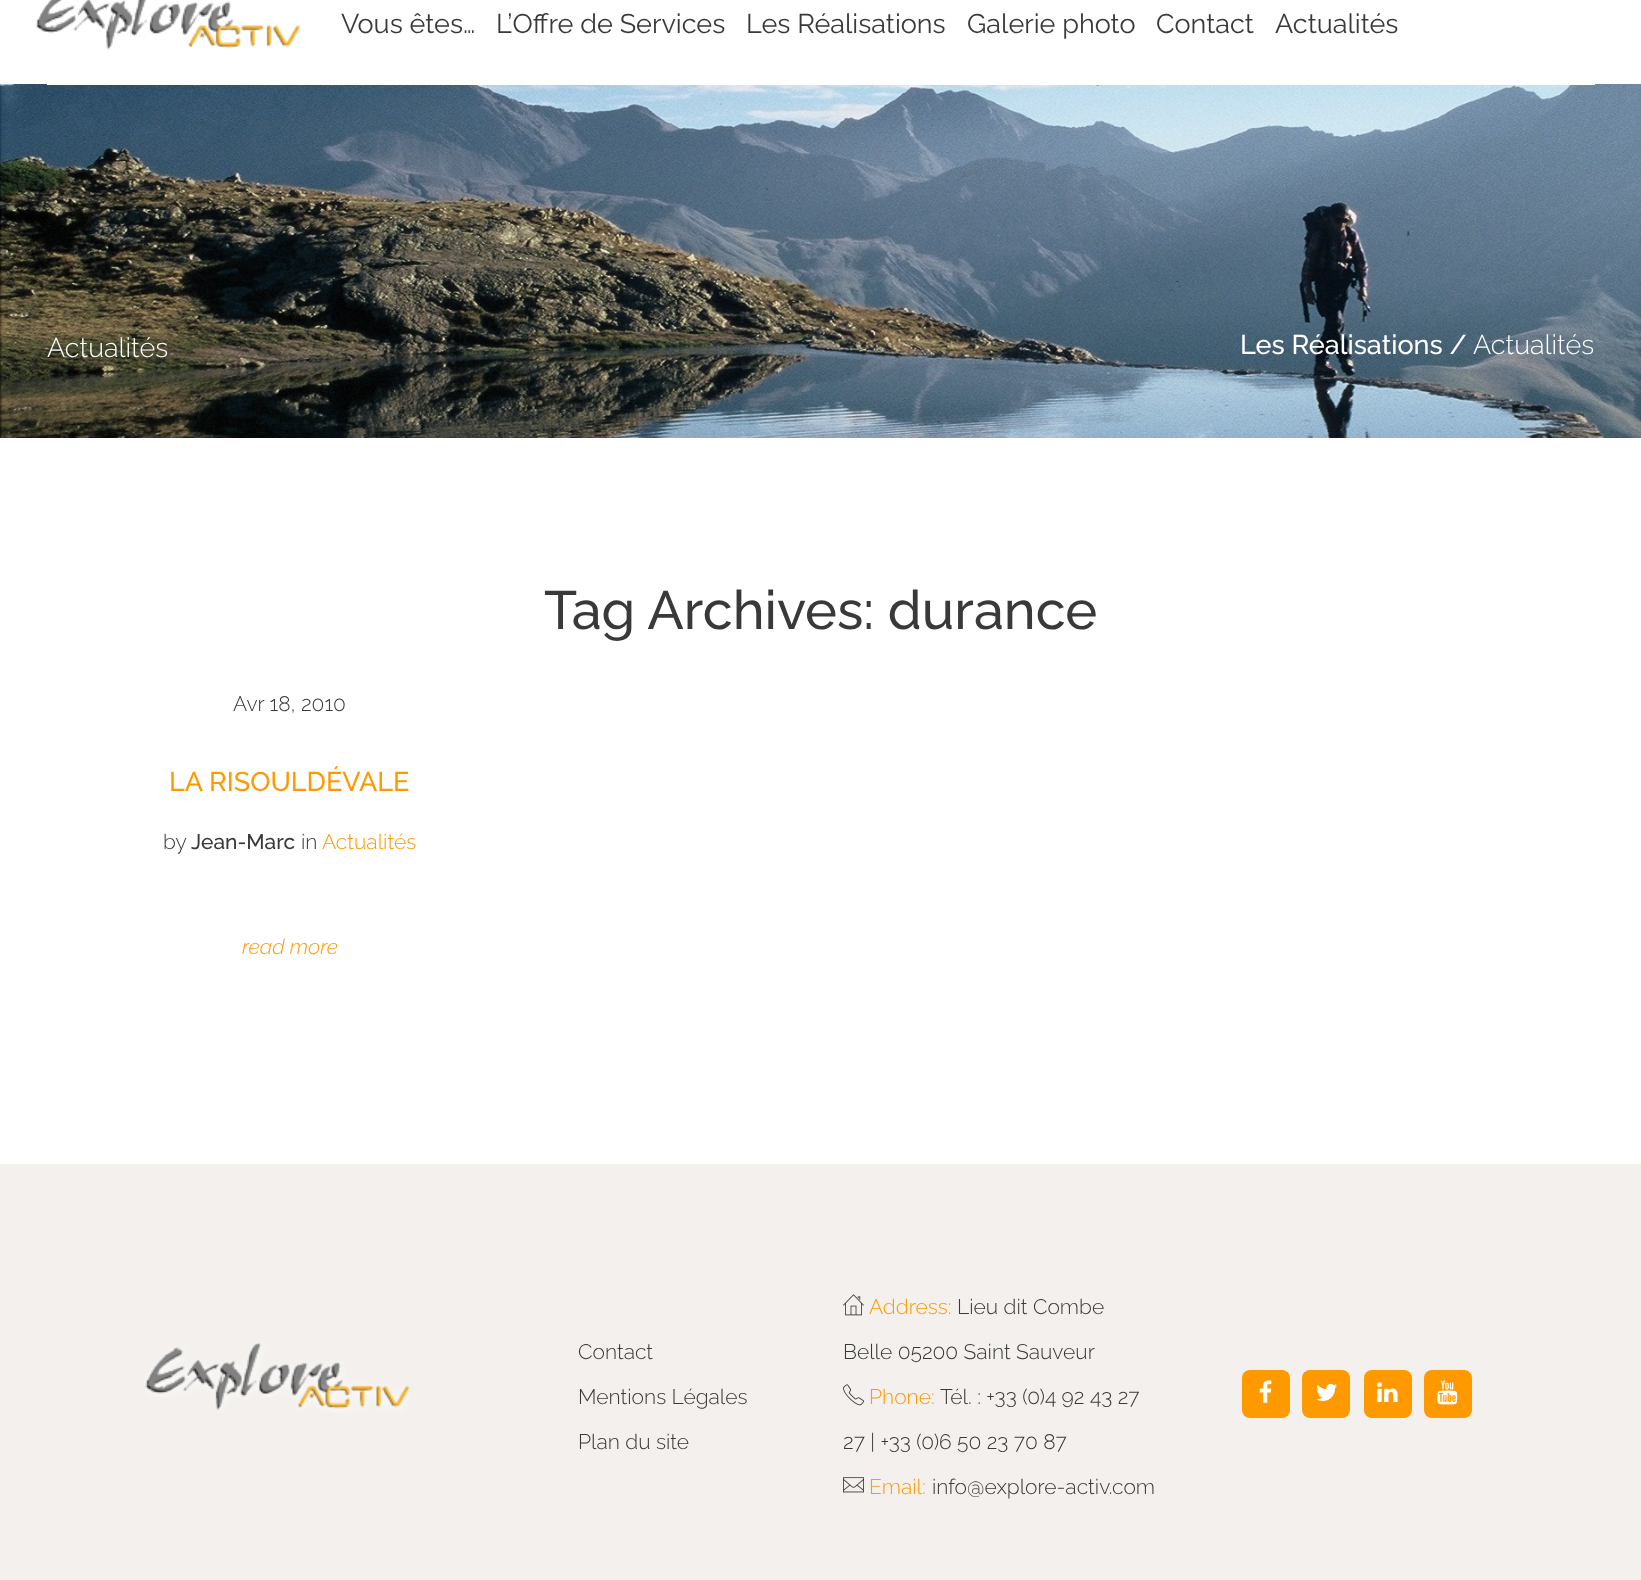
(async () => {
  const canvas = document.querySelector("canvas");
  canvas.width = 1641;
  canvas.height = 1580;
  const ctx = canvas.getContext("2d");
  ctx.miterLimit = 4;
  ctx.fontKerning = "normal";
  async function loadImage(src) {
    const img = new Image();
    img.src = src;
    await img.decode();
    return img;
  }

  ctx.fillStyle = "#ffffff";
  ctx.fillRect(0, 0, 1641, 1580);
  ctx.drawImage(await loadImage("img/1.png"), 0, 84, 1641, 354);
  ctx.fillRect(47, 84, 1548, 1);
  ctx.drawImage(await loadImage("img/2.png"), 35, 0, 266, 50);
  ctx.fillStyle = "#f3f0ed";
  ctx.fillRect(0, 1164, 1641, 416);
  ctx.drawImage(await loadImage("img/3.png"), 145, 1342, 265, 71);
  ctx.drawImage(await loadImage("img/4.png"), 843, 1294, 21, 22);
  ctx.drawImage(await loadImage("img/5.png"), 843, 1384, 21, 22);
  ctx.drawImage(await loadImage("img/6.png"), 843, 1477, 21, 16);
  ctx.fillStyle = "#ff9900";
  ctx.beginPath();
  ctx.roundRect(1242, 1370, 48, 48, 8);
  ctx.fill();
  ctx.drawImage(await loadImage("img/7.png"), 1259, 1380, 13, 23);
  ctx.beginPath();
  ctx.roundRect(1302, 1370, 48, 48, 8);
  ctx.fill();
  ctx.drawImage(await loadImage("img/8.png"), 1316, 1383, 21, 18);
  ctx.beginPath();
  ctx.roundRect(1364, 1370, 48, 48, 8);
  ctx.fill();
  ctx.drawImage(await loadImage("img/9.png"), 1377, 1382, 21, 21);
  ctx.beginPath();
  ctx.roundRect(1424, 1370, 48, 48, 8);
  ctx.fill();
  ctx.drawImage(await loadImage("img/10.png"), 1437, 1380, 21, 25);
  ctx.font = "27px Raleway";
  ctx.fillStyle = "#393939";
  for (const [text, x, y] of [
    ["Vous êtes…", 341, 33],
    ["L’Offre de Services", 496, 33],
    ["Les Réalisations", 746, 33],
    ["Galerie photo", 967, 33],
    ["Contact", 1156, 33],
    ["Actualités", 1275, 33],
  ]) {
    ctx.fillText(text, x, y);
  }
  ctx.font = "300 27px Raleway";
  ctx.fillStyle = "#ffffff";
  ctx.fillText("Actualités", 47, 357);
  ctx.font = "500 27px Raleway";
  ctx.fillText("Les Réalisations /", 1240, 354);
  ctx.font = "300 27px Raleway";
  ctx.fillText("Actualités", 1473, 354);
  ctx.font = "500 54px Raleway";
  ctx.fillStyle = "#393939";
  ctx.fillText("Tag Archives: durance", 544, 629);
  ctx.font = "300 21px Raleway";
  ctx.fillText("Avr 18, 2010", 233, 711);
  ctx.font = "500 27px Raleway";
  ctx.fillStyle = "#ff9900";
  ctx.fillText("LA RISOULDÉVALE", 169, 791);
  ctx.font = "300 21px Raleway";
  ctx.fillStyle = "#393939";
  ctx.fillText("by", 163, 849);
  ctx.font = "500 21px Raleway";
  ctx.fillText("Jean-Marc", 191, 849);
  ctx.font = "300 21px Raleway";
  ctx.fillText("in", 301, 849);
  ctx.fillStyle = "#ff9900";
  ctx.fillText("Actualités", 322, 849);
  ctx.font = "italic 300 21px Raleway";
  ctx.fillText("read more", 242, 954);
  ctx.font = "300 21px Raleway";
  ctx.fillStyle = "#393939";
  for (const [text, x, y] of [
    ["Contact", 578, 1359],
    ["Mentions Légales", 578, 1404],
    ["Plan du site", 578, 1449],
  ]) {
    ctx.fillText(text, x, y);
  }
  ctx.fillStyle = "#ff9900";
  ctx.fillText("Address:", 869, 1314);
  ctx.fillStyle = "#393939";
  ctx.fillText("Lieu dit Combe", 957, 1314);
  ctx.fillText("Belle 05200 Saint Sauveur", 843, 1359);
  ctx.fillStyle = "#ff9900";
  ctx.fillText("Phone:", 869, 1404);
  ctx.fillStyle = "#393939";
  ctx.fillText("Tél. : +33 (0)4 92 43 27", 940, 1404);
  ctx.fillText("27 | +33 (0)6 50 23 70 87", 843, 1449);
  ctx.fillStyle = "#ff9900";
  ctx.fillText("Email:", 869, 1494);
  ctx.fillStyle = "#393939";
  ctx.fillText("info@explore-activ.com", 932, 1494);
})();
